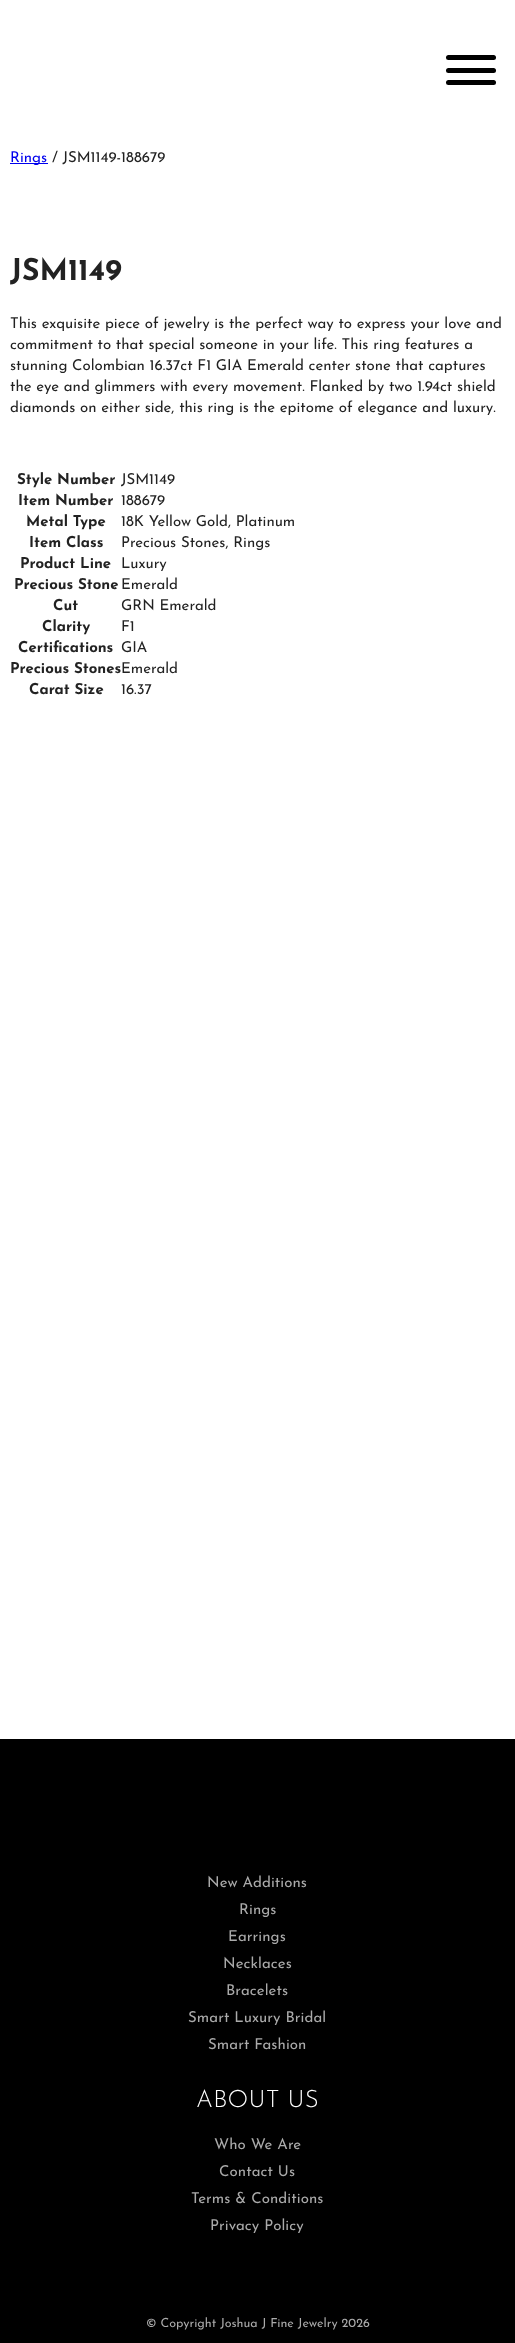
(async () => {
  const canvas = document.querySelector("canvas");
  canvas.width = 515;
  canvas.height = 2343;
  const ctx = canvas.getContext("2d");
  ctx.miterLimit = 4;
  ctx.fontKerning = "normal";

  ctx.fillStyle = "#ffffff";
  ctx.fillRect(0, 0, 515, 2343);
  ctx.fillStyle = "#000000";
  ctx.beginPath();
  ctx.roundRect(446, 68, 50, 5, 2.5);
  ctx.fill();
  ctx.beginPath();
  ctx.roundRect(446, 55, 50, 5, 2.5);
  ctx.fill();
  ctx.beginPath();
  ctx.roundRect(446, 80, 50, 5, 2.5);
  ctx.fill();
  ctx.fillStyle = "#0000ee";
  ctx.fillRect(10, 163, 38, 1);
  ctx.fillStyle = "#000000";
  ctx.fillRect(0, 1739, 515, 604);
  ctx.font = "15px Josefin Sans";
  ctx.fillStyle = "#0000ee";
  ctx.fillText("Rings", 10, 162);
  ctx.fillStyle = "#222222";
  ctx.fillText("/ JSM1149-188679", 52, 162);
  ctx.font = "bold 30px Josefin Sans";
  ctx.fillText("JSM1149", 10, 280);
  ctx.font = "15px Josefin Sans";
  for (const [text, x, y] of [
    ["This exquisite piece of jewelry is the perfect way to express your love and", 10, 328],
    ["commitment to that special someone in your life. This ring features a", 10, 349],
    ["stunning Colombian 16.37ct F1 GIA Emerald center stone that captures", 10, 370],
    ["the eye and glimmers with every movement. Flanked by two 1.94ct shield", 10, 391],
    ["diamonds on either side, this ring is the epitome of elegance and luxury.", 10, 412],
  ]) {
    ctx.fillText(text, x, y);
  }
  ctx.font = "bold 15px Josefin Sans";
  ctx.fillText("Style Number", 17, 484);
  ctx.font = "15px Josefin Sans";
  ctx.fillText("JSM1149", 121, 484);
  ctx.font = "bold 15px Josefin Sans";
  ctx.fillText("Item Number", 18, 505);
  ctx.font = "15px Josefin Sans";
  ctx.fillText("188679", 121, 505);
  ctx.font = "bold 15px Josefin Sans";
  ctx.fillText("Metal Type", 26, 526);
  ctx.font = "15px Josefin Sans";
  ctx.fillText("18K Yellow Gold, Platinum", 121, 526);
  ctx.font = "bold 15px Josefin Sans";
  ctx.fillText("Item Class", 29, 547);
  ctx.font = "15px Josefin Sans";
  ctx.fillText("Precious Stones, Rings", 121, 547);
  ctx.font = "bold 15px Josefin Sans";
  ctx.fillText("Product Line", 20, 568);
  ctx.font = "15px Josefin Sans";
  ctx.fillText("Luxury", 121, 568);
  ctx.font = "bold 15px Josefin Sans";
  ctx.fillText("Precious Stone", 14, 589);
  ctx.font = "15px Josefin Sans";
  ctx.fillText("Emerald", 121, 589);
  ctx.font = "bold 15px Josefin Sans";
  ctx.fillText("Cut", 53, 610);
  ctx.font = "15px Josefin Sans";
  ctx.fillText("GRN Emerald", 121, 610);
  ctx.font = "bold 15px Josefin Sans";
  ctx.fillText("Clarity", 42, 631);
  ctx.font = "15px Josefin Sans";
  ctx.fillText("F1", 121, 631);
  ctx.font = "bold 15px Josefin Sans";
  ctx.fillText("Certifications", 18, 652);
  ctx.font = "15px Josefin Sans";
  ctx.fillText("GIA", 121, 652);
  ctx.font = "bold 15px Josefin Sans";
  ctx.fillText("Precious Stones", 10, 673);
  ctx.font = "15px Josefin Sans";
  ctx.fillText("Emerald", 121, 673);
  ctx.font = "bold 15px Josefin Sans";
  ctx.fillText("Carat Size", 29, 694);
  ctx.font = "15px Josefin Sans";
  ctx.fillText("16.37", 121, 694);
  ctx.letterSpacing = "0.1px";
  ctx.fillStyle = "#aaaaaa";
  for (const [text, x, y] of [
    ["New Additions", 207, 1887],
    ["Rings", 239, 1914],
    ["Earrings", 228, 1941],
    ["Necklaces", 223, 1968],
    ["Bracelets", 226, 1995],
    ["Smart Luxury Bridal", 188, 2022],
    ["Smart Fashion", 208, 2049],
  ]) {
    ctx.fillText(text, x, y);
  }
  ctx.letterSpacing = "0.25px";
  ctx.font = "300 24px Josefin Sans";
  ctx.fillStyle = "#ffffff";
  ctx.fillText("ABOUT US", 196, 2107);
  ctx.letterSpacing = "0.1px";
  ctx.font = "15px Josefin Sans";
  ctx.fillStyle = "#aaaaaa";
  for (const [text, x, y] of [
    ["Who We Are", 214, 2149],
    ["Contact Us", 219, 2176],
    ["Terms & Conditions", 191, 2203],
    ["Privacy Policy", 210, 2230],
  ]) {
    ctx.fillText(text, x, y);
  }
  ctx.letterSpacing = "0px";
  ctx.font = "12.5px Josefin Sans";
  ctx.fillText("© Copyright Joshua J Fine Jewelry 2026", 146, 2327);
})();
